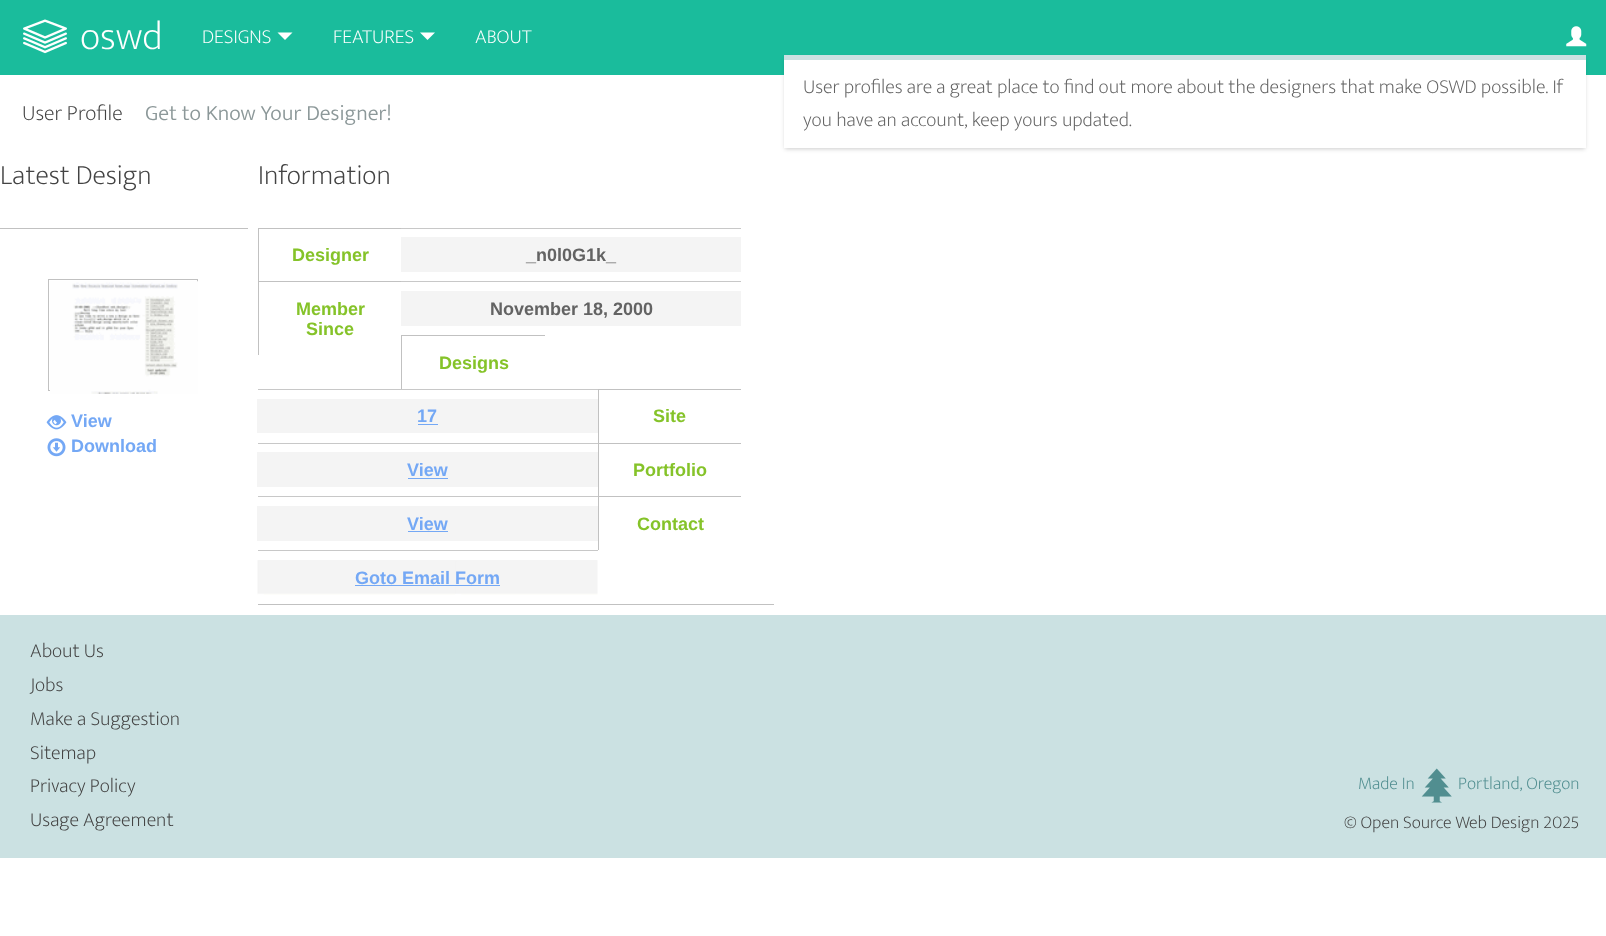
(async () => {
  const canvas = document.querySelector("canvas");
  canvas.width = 1606;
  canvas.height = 936;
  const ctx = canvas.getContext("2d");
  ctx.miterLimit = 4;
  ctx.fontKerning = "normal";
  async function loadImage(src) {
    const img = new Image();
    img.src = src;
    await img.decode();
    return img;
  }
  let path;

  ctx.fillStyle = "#ffffff";
  ctx.fillRect(0, 0, 1606, 936);
  ctx.fillStyle = "#1abc9c";
  ctx.fillRect(0, 0, 1606, 75);
  ctx.drawImage(await loadImage("img/1.png"), 23, 19, 44, 35);
  ctx.fillStyle = "#ffffff";
  path = new Path2D("M277.5 32.5H292.5L285 40Z");
  ctx.fill(path);
  path = new Path2D("M420 32.5H435L427.5 40Z");
  ctx.fill(path);
  ctx.drawImage(await loadImage("img/2.png"), 1566, 26, 21, 21);
  ctx.fillStyle = "rgba(0, 0, 0, 0.2)";
  ctx.filter = "blur(2px)";
  ctx.beginPath();
  ctx.rect(785, 59, 800, 90);
  ctx.fill();
  ctx.filter = "none";
  for (const [x, y, w, h, color] of [
    [784, 60, 802, 88, "#ffffff"],
    [784, 55, 802, 5, "#cbe1e2"],
    [0, 228, 248, 1, "#c1c1c1"],
  ]) {
    ctx.fillStyle = color;
    ctx.fillRect(x, y, w, h);
  }
  ctx.strokeStyle = "#c1c1c1";
  ctx.strokeRect(48.5, 279.5, 149, 111);
  ctx.drawImage(await loadImage("img/3.png"), 50, 281, 148, 113);
  ctx.drawImage(await loadImage("img/4.png"), 46, 415, 21, 15);
  ctx.drawImage(await loadImage("img/5.png"), 47, 438, 19, 19);
  for (const [x, y, w, h, color] of [
    [258, 604, 516, 1, "#c1c1c1"],
    [258, 228, 143, 1, "#c1c1c1"],
    [258, 228, 1, 53, "#c1c1c1"],
    [401, 237, 340, 35, "#f4f4f4"],
    [401, 228, 340, 1, "#c8c8c8"],
    [258, 281, 143, 1, "#c1c1c1"],
    [258, 281, 1, 74, "#c1c1c1"],
    [401, 291, 340, 35, "#f4f4f4"],
    [401, 281, 340, 1, "#c8c8c8"],
    [401, 335, 144, 1, "#c1c1c1"],
    [401, 335, 1, 54, "#c1c1c1"],
    [257, 399, 341, 34, "#f4f4f4"],
    [258, 389, 340, 1, "#c8c8c8"],
    [418, 424, 20, 1, "#74a8f5"],
    [598, 389, 143, 1, "#c1c1c1"],
    [598, 389, 1, 54, "#c1c1c1"],
    [257, 452, 341, 35, "#f4f4f4"],
    [258, 443, 340, 1, "#c8c8c8"],
    [408, 478, 40, 1, "#74a8f5"],
    [598, 443, 143, 1, "#c1c1c1"],
    [598, 443, 1, 53, "#c1c1c1"],
    [257, 506, 341, 35, "#f4f4f4"],
    [258, 496, 340, 1, "#c8c8c8"],
    [408, 531, 40, 1, "#74a8f5"],
    [598, 496, 143, 1, "#c1c1c1"],
    [598, 496, 1, 54, "#c1c1c1"],
  ]) {
    ctx.fillStyle = color;
    ctx.fillRect(x, y, w, h);
  }
  ctx.drawImage(await loadImage("img/6.png"), 257, 560, 341, 35);
  for (const [x, y, w, h, color] of [
    [258, 550, 340, 1, "#c8c8c8"],
    [355, 585, 145, 1, "#74a8f5"],
    [0, 615, 1606, 243, "#cbe1e2"],
  ]) {
    ctx.fillStyle = color;
    ctx.fillRect(x, y, w, h);
  }
  ctx.drawImage(await loadImage("img/7.png"), 1421, 768, 31, 35);
  ctx.font = "300 40px Ek Mukta";
  ctx.fillStyle = "#ffffff";
  ctx.fillText("oswd", 80, 49);
  ctx.font = "300 20px Ek Mukta";
  for (const [text, x, y] of [
    ["DESIGNS", 202, 43],
    ["FEATURES", 333, 43],
    ["ABOUT", 475, 43],
  ]) {
    ctx.fillText(text, x, y);
  }
  ctx.font = "300 22px Ek Mukta";
  ctx.fillStyle = "#434343";
  ctx.fillText("User Profile", 22, 120);
  ctx.font = "300 22px 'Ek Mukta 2'";
  ctx.fillStyle = "#8c9899";
  ctx.fillText("Get to Know Your Designer!", 145, 120);
  ctx.font = "300 20px Ek Mukta";
  ctx.fillStyle = "#636363";
  ctx.fillText("User profiles are a great place to find out more about the designers that make OSWD possible. If", 803, 93);
  ctx.fillText("you have an account, keep yours updated.", 803, 126);
  ctx.font = "300 28px Ek Mukta";
  ctx.fillStyle = "#434343";
  ctx.fillText("Latest Design", 0, 184);
  ctx.font = "bold 18px Liberation Sans";
  ctx.fillStyle = "#74a8f5";
  ctx.fillText("View", 71, 427);
  ctx.fillText("Download", 71, 452);
  ctx.font = "300 28px Ek Mukta";
  ctx.fillStyle = "#434343";
  ctx.fillText("Information", 258, 184);
  ctx.font = "bold 18px Liberation Sans";
  ctx.fillStyle = "#85c329";
  ctx.fillText("Designer", 292, 261);
  ctx.fillStyle = "#636363";
  ctx.fillText("_n0l0G1k_", 526, 261);
  ctx.fillStyle = "#85c329";
  ctx.fillText("Member", 296, 315);
  ctx.fillText("Since", 306, 335);
  ctx.fillStyle = "#636363";
  ctx.fillText("November 18, 2000", 490, 315);
  ctx.fillStyle = "#85c329";
  ctx.fillText("Designs", 439, 369);
  ctx.fillStyle = "#74a8f5";
  ctx.fillText("17", 417, 422);
  ctx.fillStyle = "#85c329";
  ctx.fillText("Site", 653, 422);
  ctx.fillStyle = "#74a8f5";
  ctx.fillText("View", 407, 476);
  ctx.fillStyle = "#85c329";
  ctx.fillText("Portfolio", 633, 476);
  ctx.fillStyle = "#74a8f5";
  ctx.fillText("View", 407, 530);
  ctx.fillStyle = "#85c329";
  ctx.fillText("Contact", 637, 530);
  ctx.fillStyle = "#74a8f5";
  ctx.fillText("Goto Email Form", 355, 584);
  ctx.font = "300 20px Ek Mukta";
  ctx.fillStyle = "#434343";
  for (const [text, x, y] of [
    ["About Us", 30, 657],
    ["Jobs", 30, 691],
    ["Make a Suggestion", 30, 725],
    ["Sitemap", 30, 759],
    ["Privacy Policy", 30, 792],
    ["Usage Agreement", 30, 826],
  ]) {
    ctx.fillText(text, x, y);
  }
  ctx.font = "300 18px Ek Mukta";
  ctx.fillStyle = "#518e90";
  ctx.fillText("Made In", 1358, 789);
  ctx.fillText("Portland, Oregon", 1458, 789);
  ctx.fillStyle = "#434343";
  ctx.fillText("© Open Source Web Design 2025", 1344, 828);
})();
